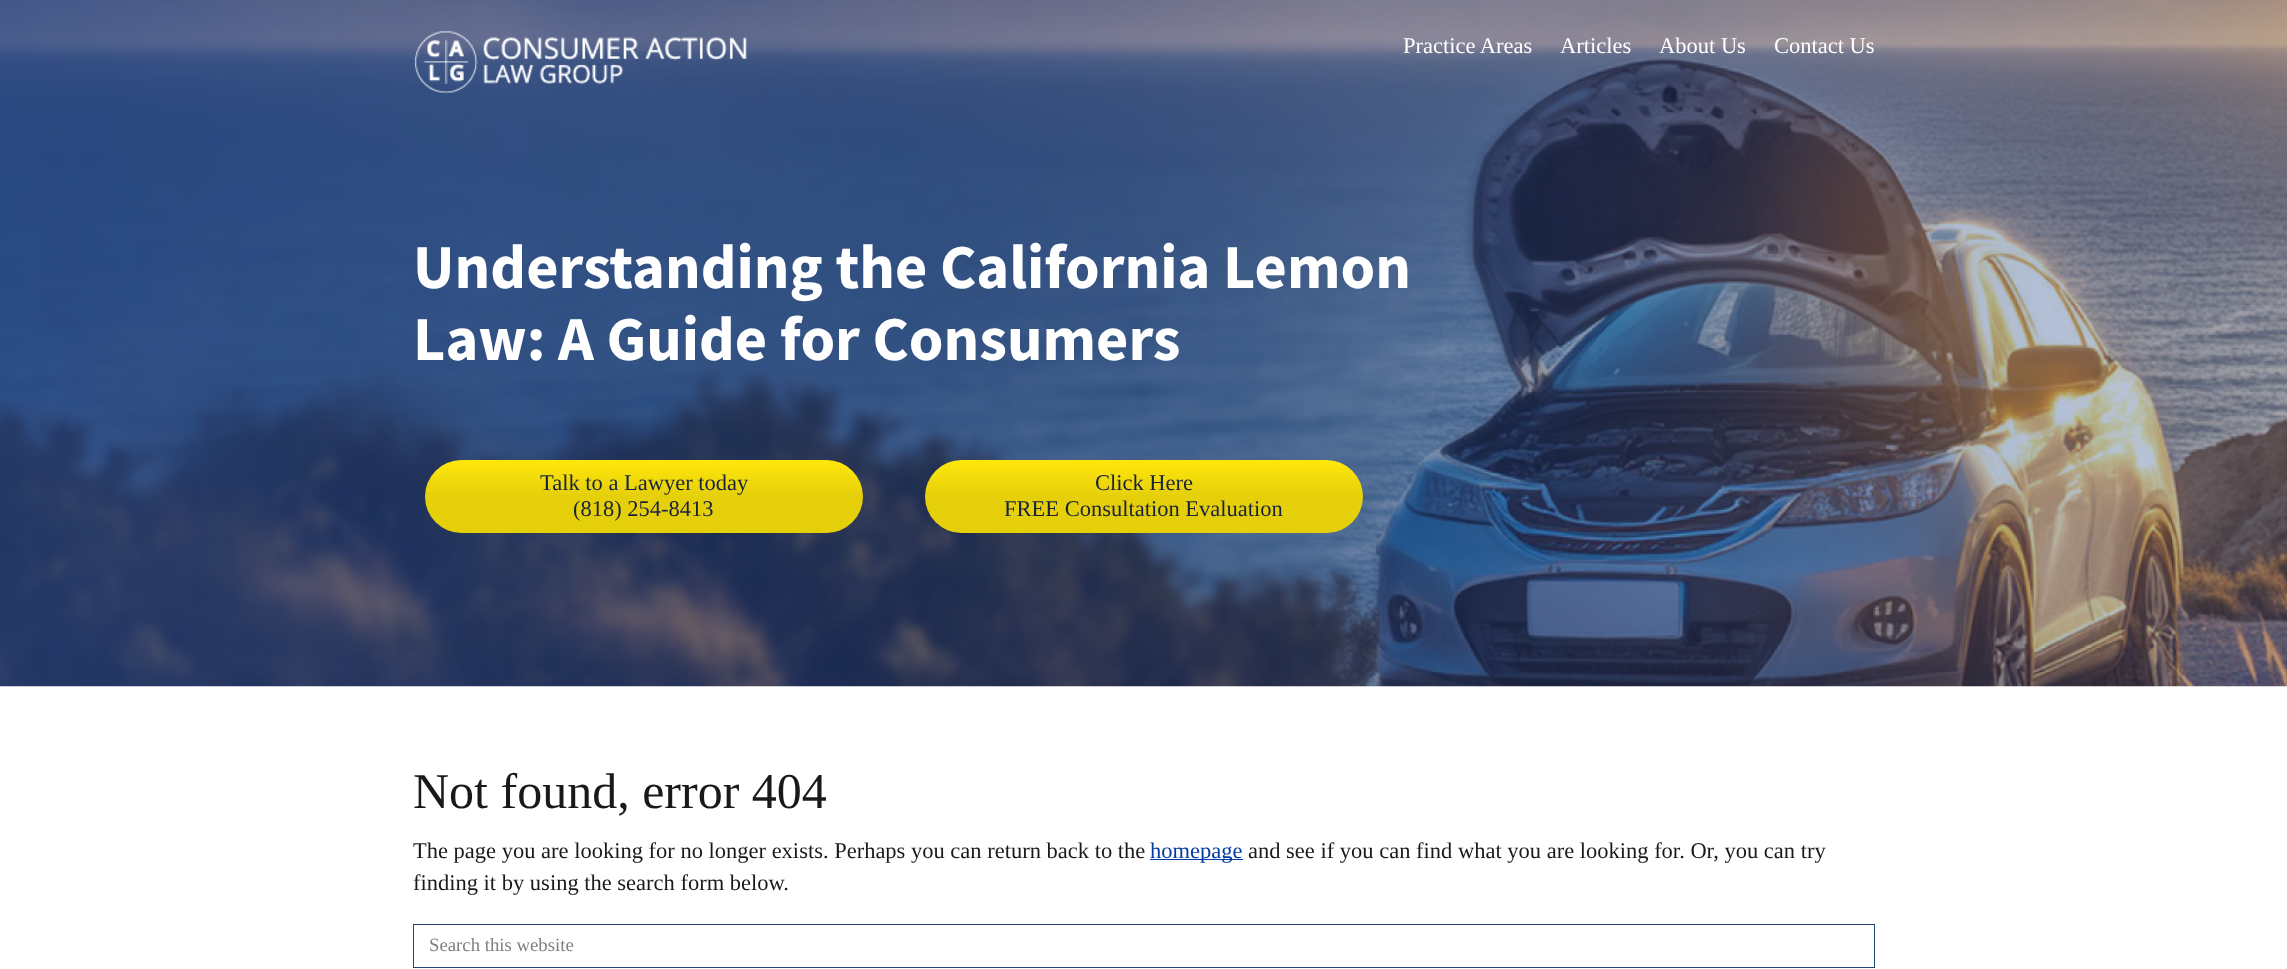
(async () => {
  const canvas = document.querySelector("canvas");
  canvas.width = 2287;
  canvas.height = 969;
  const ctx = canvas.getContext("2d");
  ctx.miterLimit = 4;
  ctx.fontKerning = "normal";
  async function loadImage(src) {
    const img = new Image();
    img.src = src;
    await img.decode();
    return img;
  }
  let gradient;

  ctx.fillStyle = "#ffffff";
  ctx.fillRect(0, 0, 2287, 969);
  ctx.drawImage(await loadImage("img/1.png"), 0, 0, 2287, 687);
  ctx.drawImage(await loadImage("img/2.png"), 414, 31, 333, 63);
  ctx.fillStyle = "#ffe70b";
  ctx.beginPath();
  ctx.roundRect(425, 460, 438, 73, 36.5);
  ctx.fill();
  gradient = ctx.createLinearGradient(863, 460, 863, 533);
  gradient.addColorStop(0, "rgba(0, 0, 0, 0)");
  gradient.addColorStop(0.5, "rgba(0, 0, 0, 0.1)");
  gradient.addColorStop(1, "rgba(0, 0, 0, 0.1)");
  ctx.fillStyle = gradient;
  ctx.beginPath();
  ctx.roundRect(425, 460, 438, 73, 36.5);
  ctx.fill();
  ctx.fillStyle = "#ffe70b";
  ctx.beginPath();
  ctx.roundRect(925, 460, 438, 73, 36.5);
  ctx.fill();
  gradient = ctx.createLinearGradient(1363, 460, 1363, 533);
  gradient.addColorStop(0, "rgba(0, 0, 0, 0)");
  gradient.addColorStop(0.5, "rgba(0, 0, 0, 0.1)");
  gradient.addColorStop(1, "rgba(0, 0, 0, 0.1)");
  ctx.fillStyle = gradient;
  ctx.beginPath();
  ctx.roundRect(925, 460, 438, 73, 36.5);
  ctx.fill();
  ctx.fillStyle = "#023ba5";
  ctx.fillRect(1150, 859, 93, 1);
  ctx.strokeStyle = "#204476";
  ctx.strokeRect(413.5, 924.5, 1461, 43);
  ctx.font = "22.5px Liberation Serif";
  ctx.fillStyle = "#ffffff";
  for (const [text, x, y] of [
    ["Practice Areas", 1403, 53],
    ["Articles", 1560, 53],
    ["About Us", 1659, 53],
    ["Contact Us", 1774, 53],
  ]) {
    ctx.fillText(text, x, y);
  }
  ctx.font = "bold 62.5px Source Sans Pro";
  ctx.fillText("Understanding the California Lemon", 413, 288);
  ctx.fillText("Law: A Guide for Consumers", 413, 360);
  ctx.font = "22.5px Liberation Serif";
  ctx.fillStyle = "#19223d";
  for (const [text, x, y] of [
    ["Talk to a Lawyer today", 540, 490],
    ["(818) 254-8413", 573, 516],
    ["Click Here", 1095, 490],
    ["FREE Consultation Evaluation", 1004, 516],
  ]) {
    ctx.fillText(text, x, y);
  }
  ctx.font = "50px Liberation Serif";
  ctx.fillStyle = "#191919";
  ctx.fillText("Not found, error 404", 413, 808);
  ctx.font = "22.5px Liberation Serif";
  ctx.fillText("The page you are looking for no longer exists. Perhaps you can return back to the", 413, 858);
  ctx.fillStyle = "#023ba5";
  ctx.fillText("homepage", 1150, 858);
  ctx.fillStyle = "#191919";
  ctx.fillText("and see if you can find what you are looking for. Or, you can try", 1248, 858);
  ctx.fillText("finding it by using the search form below.", 413, 890);
  ctx.font = "18.75px Liberation Serif";
  ctx.fillStyle = "#827f7f";
  ctx.fillText("Search this website", 429, 951);
})();
